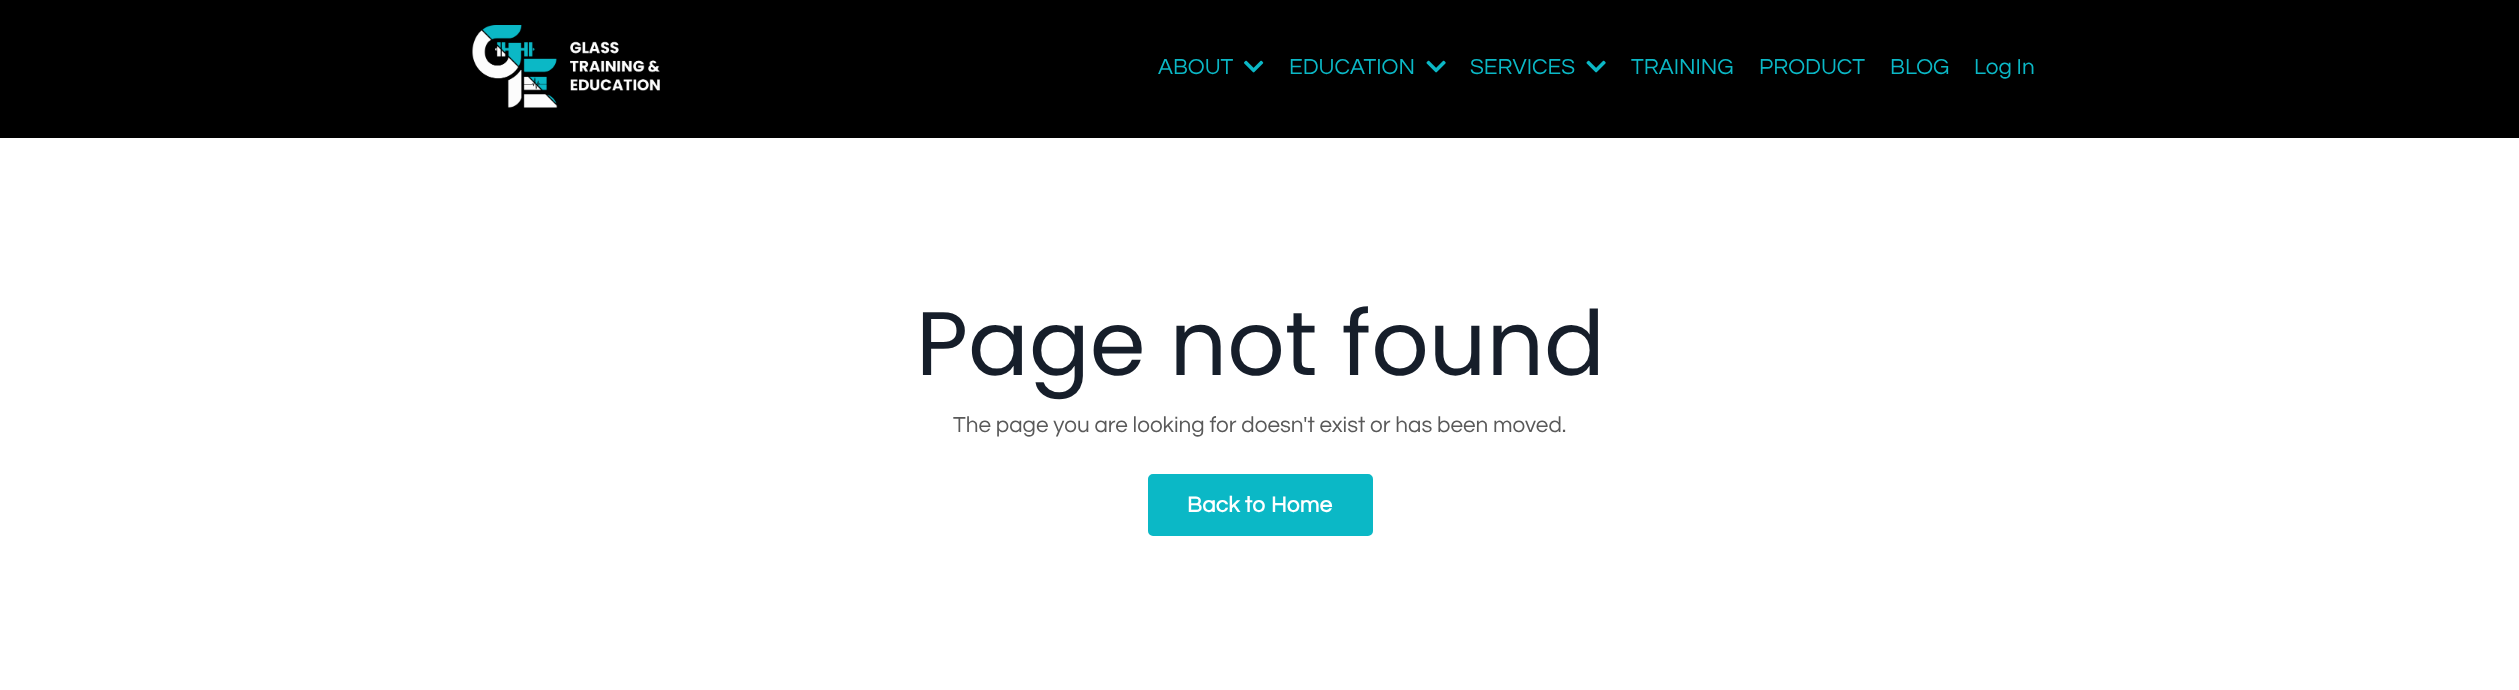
(async () => {
  const canvas = document.querySelector("canvas");
  canvas.width = 2519;
  canvas.height = 690;
  const ctx = canvas.getContext("2d");
  ctx.miterLimit = 4;
  ctx.fontKerning = "normal";
  async function loadImage(src) {
    const img = new Image();
    img.src = src;
    await img.decode();
    return img;
  }

  ctx.fillStyle = "#ffffff";
  ctx.fillRect(0, 0, 2519, 690);
  ctx.fillStyle = "#000000";
  ctx.fillRect(0, 0, 2519, 138);
  ctx.drawImage(await loadImage("img/1.png"), 472, 25, 188, 83);
  ctx.drawImage(await loadImage("img/2.png"), 1244, 60, 20, 13);
  ctx.drawImage(await loadImage("img/3.png"), 1426, 60, 20, 13);
  ctx.drawImage(await loadImage("img/3.png"), 1586, 60, 20, 13);
  ctx.fillStyle = "#0bb8c6";
  ctx.beginPath();
  ctx.roundRect(1149.5, 475.5, 222, 59, 3.5);
  ctx.fill();
  ctx.strokeStyle = "#0bb8c6";
  ctx.lineWidth = 3;
  ctx.stroke();
  ctx.font = "22.5px Questrial";
  for (const [text, x, y] of [
    ["ABOUT", 1158, 74],
    ["EDUCATION", 1289, 74],
    ["SERVICES", 1470, 74],
    ["TRAINING", 1631, 74],
    ["PRODUCT", 1759, 74],
    ["BLOG", 1890, 74],
    ["Log In", 1974, 74],
  ]) {
    ctx.fillText(text, x, y);
  }
  ctx.font = "90px Poppins";
  ctx.fillStyle = "#161e2a";
  ctx.fillText("Page not found", 916, 375);
  ctx.font = "22.5px Questrial";
  ctx.fillStyle = "#595959";
  ctx.fillText("The page you are looking for doesn't exist or has been moved.", 953, 432);
  ctx.letterSpacing = "0.25px";
  ctx.font = "bold 22.5px Questrial";
  ctx.fillStyle = "#ffffff";
  ctx.fillText("Back to Home", 1187, 512);
})();
